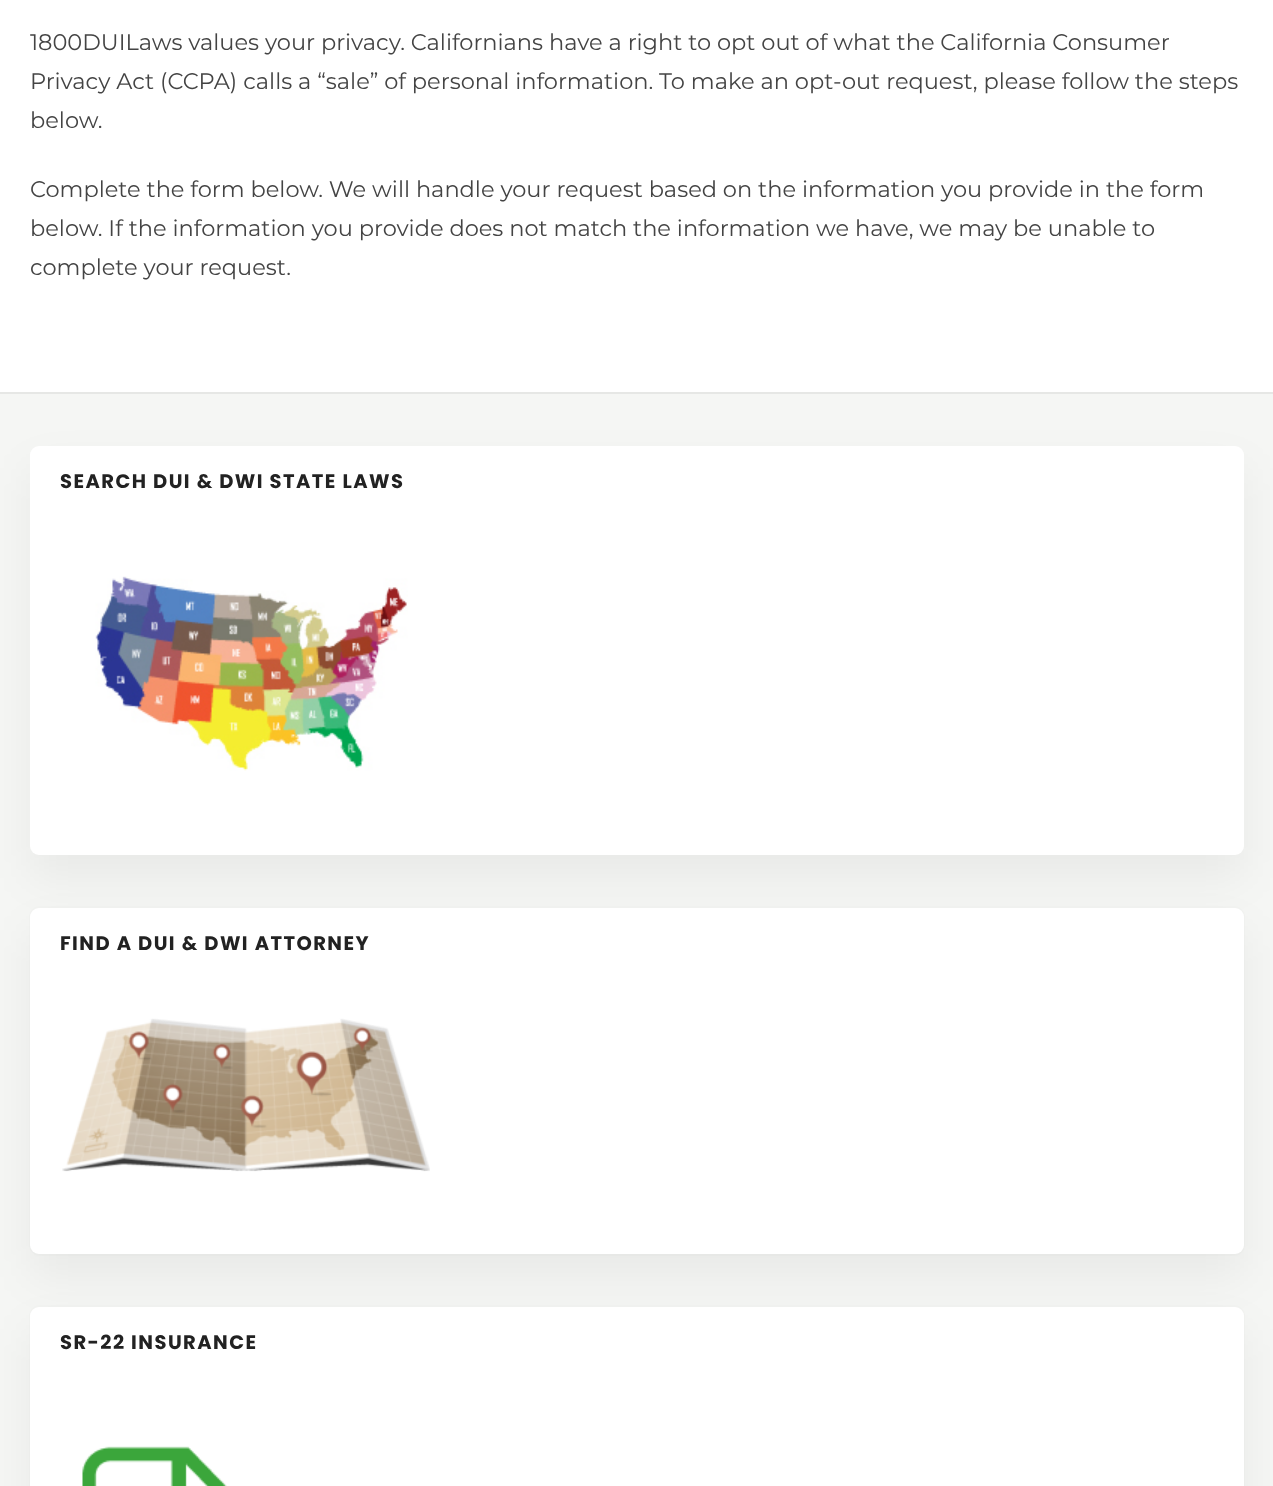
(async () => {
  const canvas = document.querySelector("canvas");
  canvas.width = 1273;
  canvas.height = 1486;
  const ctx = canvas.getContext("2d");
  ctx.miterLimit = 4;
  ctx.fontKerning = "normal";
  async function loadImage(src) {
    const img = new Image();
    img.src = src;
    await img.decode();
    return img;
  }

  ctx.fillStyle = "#ffffff";
  ctx.fillRect(0, 0, 1273, 1486);
  ctx.fillStyle = "#f5f6f4";
  ctx.fillRect(0, 394, 1273, 1092);
  ctx.fillStyle = "#e6e7e5";
  ctx.fillRect(0, 392, 1273, 2);
  ctx.fillStyle = "rgba(0, 0, 0, 0.05)";
  ctx.filter = "blur(22.5px)";
  ctx.beginPath();
  ctx.roundRect(30, 468, 1214, 410, 9);
  ctx.fill();
  ctx.filter = "none";
  ctx.fillStyle = "#ffffff";
  ctx.beginPath();
  ctx.roundRect(30, 446, 1214, 409, 9);
  ctx.fill();
  ctx.drawImage(await loadImage("img/1.png"), 95, 576, 313, 195);
  ctx.beginPath();
  ctx.roundRect(30, 907, 1214, 348, 10);
  ctx.strokeStyle = "#f2f3f1";
  ctx.lineWidth = 2;
  ctx.stroke();
  ctx.fillStyle = "rgba(0, 0, 0, 0.05)";
  ctx.filter = "blur(22.5px)";
  ctx.beginPath();
  ctx.roundRect(30, 930, 1214, 347, 9);
  ctx.fill();
  ctx.filter = "none";
  ctx.fillStyle = "#ffffff";
  ctx.beginPath();
  ctx.roundRect(30, 908, 1214, 346, 9);
  ctx.fill();
  ctx.drawImage(await loadImage("img/2.png"), 62, 1018, 368, 154);
  ctx.beginPath();
  ctx.roundRect(30, 1306, 1214, 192, 10);
  ctx.stroke();
  ctx.fillStyle = "rgba(0, 0, 0, 0.05)";
  ctx.filter = "blur(22.5px)";
  ctx.beginPath();
  ctx.roundRect(30, 1329, 1214, 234, 9);
  ctx.fill();
  ctx.filter = "none";
  ctx.fillStyle = "#ffffff";
  ctx.beginPath();
  ctx.roundRect(30, 1307, 1214, 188, 9);
  ctx.fill();
  ctx.drawImage(await loadImage("img/3.png"), 82, 1446, 145, 40);
  ctx.font = "22.5px Montserrat";
  ctx.fillStyle = "#444444";
  for (const [text, x, y] of [
    ["1800DUILaws values your privacy. Californians have a right to opt out of what the California Consumer", 30, 50],
    ["Privacy Act (CCPA) calls a “sale” of personal information. To make an opt-out request, please follow the steps", 30, 89],
    ["below.", 30, 128],
    ["Complete the form below. We will handle your request based on the information you provide in the form", 30, 197],
    ["below. If the information you provide does not match the information we have, we may be unable to", 30, 236],
    ["complete your request.", 30, 275],
  ]) {
    ctx.fillText(text, x, y);
  }
  ctx.letterSpacing = "1.45px";
  ctx.font = "bold 19.5px Poppins";
  ctx.fillStyle = "#222222";
  for (const [text, x, y] of [
    ["SEARCH DUI & DWI STATE LAWS", 60, 488],
    ["FIND A DUI & DWI ATTORNEY", 60, 950],
    ["SR-22 INSURANCE", 60, 1349],
  ]) {
    ctx.fillText(text, x, y);
  }
})();
